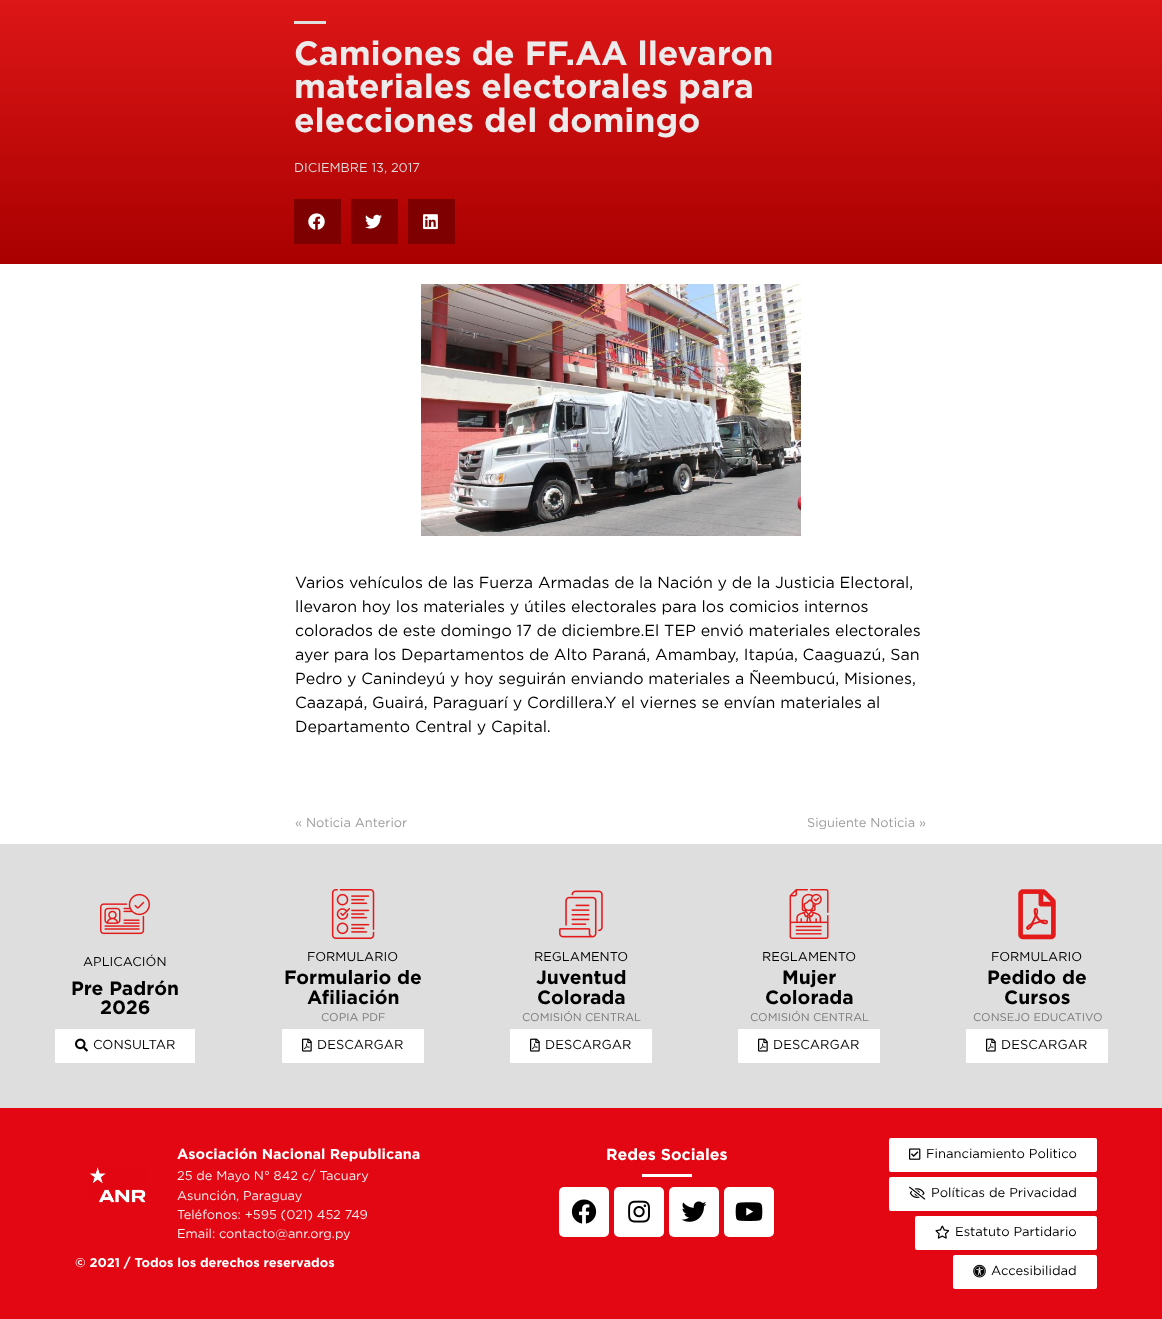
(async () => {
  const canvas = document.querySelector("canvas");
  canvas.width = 1162;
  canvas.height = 1319;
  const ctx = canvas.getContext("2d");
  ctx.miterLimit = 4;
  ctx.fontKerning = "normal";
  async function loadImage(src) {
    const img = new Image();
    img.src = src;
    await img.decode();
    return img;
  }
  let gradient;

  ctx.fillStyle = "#ffffff";
  ctx.fillRect(0, 0, 1162, 1319);
  gradient = ctx.createLinearGradient(581, -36, 581, 264);
  gradient.addColorStop(0, "#e4191a");
  gradient.addColorStop(1, "#a90000");
  ctx.fillStyle = gradient;
  ctx.fillRect(0, 0, 1162, 264);
  ctx.fillStyle = "#dedede";
  ctx.fillRect(294, 21, 32, 3);
  ctx.strokeStyle = "#7f0000";
  ctx.lineWidth = 2;
  ctx.strokeRect(295, 200, 45, 43);
  ctx.fillStyle = "#7f0000";
  ctx.fillRect(296, 201, 43, 41);
  ctx.drawImage(await loadImage("img/1.png"), 308, 213, 17, 17);
  ctx.strokeRect(352, 200, 45, 43);
  ctx.fillRect(353, 201, 43, 41);
  ctx.drawImage(await loadImage("img/2.png"), 365, 214, 17, 15);
  ctx.strokeRect(409, 200, 45, 43);
  ctx.fillRect(410, 201, 43, 41);
  ctx.drawImage(await loadImage("img/3.png"), 423, 214, 15, 16);
  ctx.drawImage(await loadImage("img/4.png"), 421, 284, 380, 252);
  ctx.fillStyle = "#dedede";
  ctx.fillRect(0, 844, 1162, 264);
  ctx.drawImage(await loadImage("img/5.png"), 100, 893, 50, 42);
  ctx.fillStyle = "#ffffff";
  ctx.beginPath();
  ctx.roundRect(55, 1029, 140, 34, 1);
  ctx.fill();
  ctx.drawImage(await loadImage("img/6.png"), 75, 1038, 13, 14);
  ctx.drawImage(await loadImage("img/7.png"), 331, 889, 44, 50);
  ctx.beginPath();
  ctx.roundRect(282, 1029, 142, 34, 1);
  ctx.fill();
  ctx.drawImage(await loadImage("img/8.png"), 302, 1038, 10, 14);
  ctx.drawImage(await loadImage("img/9.png"), 559, 890, 44, 48);
  ctx.beginPath();
  ctx.roundRect(510, 1029, 142, 34, 1);
  ctx.fill();
  ctx.drawImage(await loadImage("img/8.png"), 530, 1038, 10, 14);
  ctx.drawImage(await loadImage("img/10.png"), 789, 889, 40, 50);
  ctx.beginPath();
  ctx.roundRect(738, 1029, 142, 34, 1);
  ctx.fill();
  ctx.drawImage(await loadImage("img/8.png"), 758, 1038, 10, 14);
  ctx.drawImage(await loadImage("img/11.png"), 1018, 889, 38, 51);
  ctx.beginPath();
  ctx.roundRect(966, 1029, 142, 34, 1);
  ctx.fill();
  ctx.drawImage(await loadImage("img/8.png"), 986, 1038, 10, 14);
  ctx.fillStyle = "#e30613";
  ctx.fillRect(0, 1108, 1162, 211);
  ctx.drawImage(await loadImage("img/12.png"), 89, 1167, 57, 36);
  ctx.fillStyle = "#ffffff";
  ctx.fillRect(642, 1174, 50, 3);
  ctx.beginPath();
  ctx.roundRect(559, 1187, 50, 50, 5);
  ctx.fill();
  ctx.drawImage(await loadImage("img/13.png"), 571, 1199, 26, 25);
  ctx.beginPath();
  ctx.roundRect(614, 1187, 50, 50, 5);
  ctx.fill();
  ctx.drawImage(await loadImage("img/14.png"), 628, 1200, 22, 23);
  ctx.beginPath();
  ctx.roundRect(669, 1187, 50, 50, 5);
  ctx.fill();
  ctx.drawImage(await loadImage("img/15.png"), 681, 1201, 26, 21);
  ctx.beginPath();
  ctx.roundRect(724, 1187, 50, 50, 5);
  ctx.fill();
  ctx.drawImage(await loadImage("img/16.png"), 735, 1202, 28, 19);
  ctx.beginPath();
  ctx.roundRect(889, 1138, 208, 34, 2);
  ctx.fill();
  ctx.drawImage(await loadImage("img/17.png"), 909, 1148, 12, 12);
  ctx.beginPath();
  ctx.roundRect(889, 1177, 208, 34, 2);
  ctx.fill();
  ctx.drawImage(await loadImage("img/18.png"), 909, 1186, 17, 14);
  ctx.beginPath();
  ctx.roundRect(915, 1216, 182, 34, 2);
  ctx.fill();
  ctx.drawImage(await loadImage("img/19.png"), 935, 1225, 15, 14);
  ctx.beginPath();
  ctx.roundRect(953, 1255, 144, 34, 2);
  ctx.fill();
  ctx.drawImage(await loadImage("img/20.png"), 973, 1264, 13, 14);
  ctx.font = "bold 33.6px Gotham";
  ctx.fillStyle = "#eceaea";
  for (const [text, x, y] of [
    ["Camiones de FF.AA llevaron", 294, 65],
    ["materiales electorales para", 294, 98],
    ["elecciones del domingo", 294, 132],
  ]) {
    ctx.fillText(text, x, y);
  }
  ctx.font = "12.8px Gotham";
  ctx.fillStyle = "#dedede";
  ctx.fillText("DICIEMBRE 13, 2017", 294, 172);
  ctx.font = "16px Gotham";
  ctx.fillStyle = "#000000";
  for (const [text, x, y] of [
    ["Varios vehículos de las Fuerza Armadas de la Nación y de la Justicia Electoral,", 295, 588],
    ["llevaron hoy los materiales y útiles electorales para los comicios internos", 295, 612],
    ["colorados de este domingo 17 de diciembre.El TEP envió materiales electorales", 295, 636],
    ["ayer para los Departamentos de Alto Paraná, Amambay, Itapúa, Caaguazú, San", 295, 660],
    ["Pedro y Canindeyú y hoy seguirán enviando materiales a Ñeembucú, Misiones,", 295, 684],
    ["Caazapá, Guairá, Paraguarí y Cordillera.Y el viernes se envían materiales al", 295, 708],
    ["Departamento Central y Capital.", 295, 732],
  ]) {
    ctx.fillText(text, x, y);
  }
  ctx.font = "12.8px Gotham";
  ctx.fillStyle = "#9c9c9c";
  ctx.fillText("« Noticia Anterior", 295, 827);
  ctx.fillText("Siguiente Noticia »", 807, 827);
  ctx.fillStyle = "#000000";
  ctx.fillText("APLICACIÓN", 83, 966);
  ctx.font = "bold 19.25px Gotham";
  ctx.fillText("Pre Padrón", 71, 995);
  ctx.fillText("2026", 100, 1014);
  ctx.font = "13px Gotham";
  ctx.fillText("CONSULTAR", 93, 1049);
  ctx.font = "12.8px Gotham";
  ctx.fillText("FORMULARIO", 307, 961);
  ctx.font = "bold 19.25px Gotham";
  ctx.fillText("Formulario de", 284, 984);
  ctx.fillText("Afiliación", 307, 1004);
  ctx.font = "11.25px Gotham";
  ctx.fillStyle = "#787979";
  ctx.fillText("COPIA PDF", 321, 1021);
  ctx.font = "13px Gotham";
  ctx.fillStyle = "#000000";
  ctx.fillText("DESCARGAR", 317, 1049);
  ctx.font = "12.8px Gotham";
  ctx.fillText("REGLAMENTO", 534, 961);
  ctx.font = "bold 19.25px Gotham";
  ctx.fillText("Juventud", 536, 984);
  ctx.fillText("Colorada", 537, 1004);
  ctx.font = "11.25px Gotham";
  ctx.fillStyle = "#787979";
  ctx.fillText("COMISIÓN CENTRAL", 522, 1021);
  ctx.font = "13px Gotham";
  ctx.fillStyle = "#000000";
  ctx.fillText("DESCARGAR", 545, 1049);
  ctx.font = "12.8px Gotham";
  ctx.fillText("REGLAMENTO", 762, 961);
  ctx.font = "bold 19.25px Gotham";
  ctx.fillText("Mujer", 782, 984);
  ctx.fillText("Colorada", 765, 1004);
  ctx.font = "11.25px Gotham";
  ctx.fillStyle = "#787979";
  ctx.fillText("COMISIÓN CENTRAL", 750, 1021);
  ctx.font = "13px Gotham";
  ctx.fillStyle = "#000000";
  ctx.fillText("DESCARGAR", 773, 1049);
  ctx.font = "12.8px Gotham";
  ctx.fillText("FORMULARIO", 991, 961);
  ctx.font = "bold 19.25px Gotham";
  ctx.fillText("Pedido de", 987, 984);
  ctx.fillText("Cursos", 1004, 1004);
  ctx.font = "11.25px Gotham";
  ctx.fillStyle = "#787979";
  ctx.fillText("CONSEJO EDUCATIVO", 973, 1021);
  ctx.font = "13px Gotham";
  ctx.fillStyle = "#000000";
  ctx.fillText("DESCARGAR", 1001, 1049);
  ctx.font = "bold 14.4px Gotham";
  ctx.fillStyle = "#ffffff";
  ctx.fillText("Asociación Nacional Republicana", 177, 1159);
  ctx.font = "12.8px Gotham";
  ctx.fillStyle = "#f3f0f0";
  for (const [text, x, y] of [
    ["25 de Mayo N° 842 c/ Tacuary", 177, 1180],
    ["Asunción, Paraguay", 177, 1200],
    ["Teléfonos: +595 (021) 452 749", 177, 1219],
    ["Email: contacto@anr.org.py", 177, 1238],
  ]) {
    ctx.fillText(text, x, y);
  }
  ctx.font = "bold 12.8px Gotham";
  ctx.fillStyle = "#ffffff";
  ctx.fillText("© 2021 / Todos los derechos reservados", 75, 1267);
  ctx.font = "bold 16px Gotham";
  ctx.fillText("Redes Sociales", 606, 1160);
  ctx.font = "13px Gotham";
  ctx.fillStyle = "#000000";
  for (const [text, x, y] of [
    ["Financiamiento Politico", 926, 1158],
    ["Políticas de Privacidad", 931, 1197],
    ["Estatuto Partidario", 955, 1236],
    ["Accesibilidad", 991, 1275],
  ]) {
    ctx.fillText(text, x, y);
  }
})();
